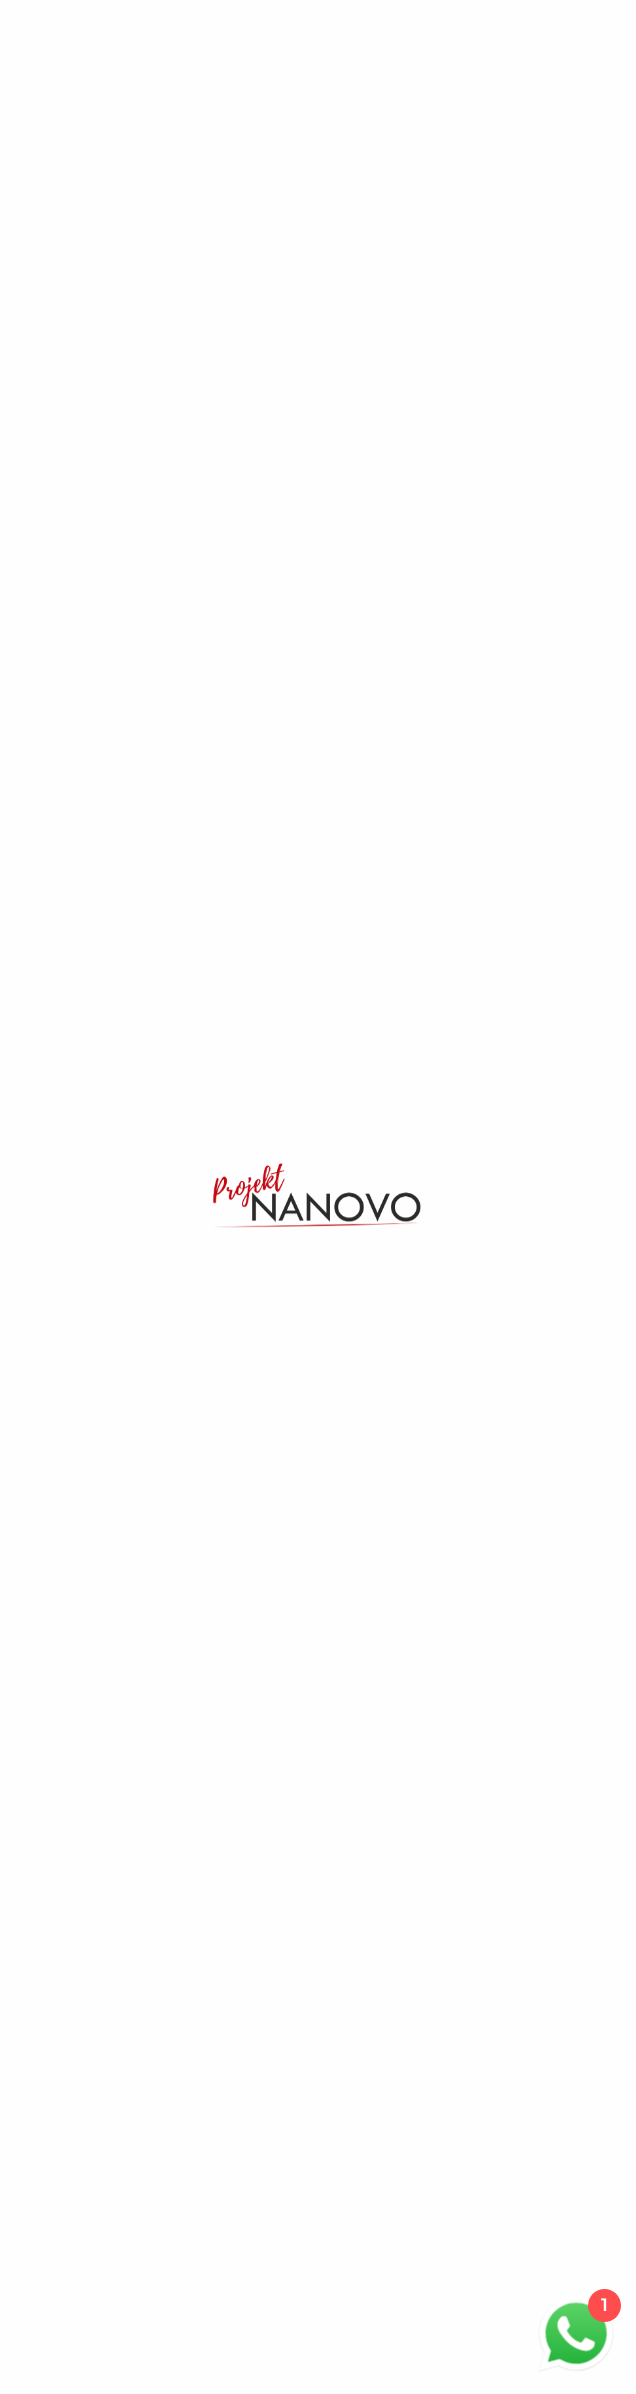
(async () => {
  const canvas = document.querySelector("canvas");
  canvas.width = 636;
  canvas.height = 2394;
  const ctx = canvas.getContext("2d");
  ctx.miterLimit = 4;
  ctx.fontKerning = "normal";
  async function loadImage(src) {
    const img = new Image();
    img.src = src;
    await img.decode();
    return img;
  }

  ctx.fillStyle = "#fefefe";
  ctx.fillRect(0, 0, 636, 2394);
  ctx.drawImage(await loadImage("img/1.png"), 213, 1163, 208, 65);
  ctx.drawImage(await loadImage("img/2.png"), 538, 2302, 76, 70);
  ctx.fillStyle = "#ff4c4c";
  ctx.beginPath();
  ctx.arc(604.5, 2305.5, 16.5, 0, Math.PI * 2);
  ctx.fill();
  ctx.font = "600 18px Montserrat";
  ctx.fillStyle = "#ffffff";
  ctx.fillText("1", 601, 2311);
})();
